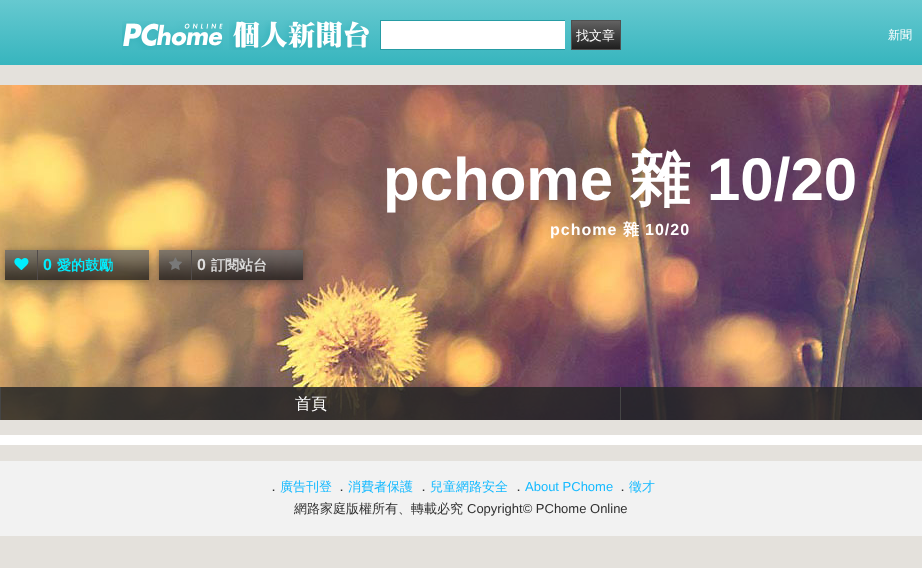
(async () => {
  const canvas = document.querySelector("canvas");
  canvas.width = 922;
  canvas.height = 568;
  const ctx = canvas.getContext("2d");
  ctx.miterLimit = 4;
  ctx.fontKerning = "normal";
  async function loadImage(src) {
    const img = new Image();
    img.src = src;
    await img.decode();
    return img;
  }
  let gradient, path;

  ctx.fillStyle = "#e4e1dc";
  ctx.fillRect(0, 0, 922, 568);
  gradient = ctx.createLinearGradient(620, 0, 620, 65);
  gradient.addColorStop(0, "#66c9d0");
  gradient.addColorStop(1, "#37b5be");
  ctx.fillStyle = gradient;
  ctx.fillRect(0, 0, 922, 65);
  ctx.fillStyle = "#33b4bd";
  ctx.fillRect(122, 64, 800, 1);
  ctx.drawImage(await loadImage("img/1.png"), 122, 21, 101, 29);
  ctx.drawImage(await loadImage("img/2.png"), 229, 20, 140, 30);
  for (const [x, y, w, h, color] of [
    [381, 21, 184, 28, "#ffffff"],
    [380, 20, 185, 1, "#269ca4"],
    [380, 49, 185, 1, "#269ca4"],
    [380, 20, 1, 30, "#269ca4"],
  ]) {
    ctx.fillStyle = color;
    ctx.fillRect(x, y, w, h);
  }
  gradient = ctx.createLinearGradient(596, 21, 596, 49);
  gradient.addColorStop(0, "#626262");
  gradient.addColorStop(1, "#1f1f1f");
  ctx.fillStyle = gradient;
  ctx.fillRect(572, 21, 48, 28);
  ctx.strokeStyle = "#505050";
  ctx.strokeRect(571.5, 20.5, 49, 29);
  ctx.drawImage(await loadImage("img/3.png"), 0, 85, 922, 335);
  ctx.save();
  path = new Path2D("M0 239H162V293H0ZM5 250H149V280H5Z");
  ctx.clip(path, "evenodd");
  ctx.fillStyle = "rgba(0, 0, 0, 0.3)";
  ctx.filter = "blur(3.5px)";
  ctx.beginPath();
  ctx.rect(6, 251, 144, 30);
  ctx.fill();
  ctx.filter = "none";
  ctx.restore();
  ctx.drawImage(await loadImage("img/4.png"), 5, 250, 144, 30);
  ctx.fillStyle = "#514b4a";
  ctx.fillRect(37, 250, 1, 30);
  ctx.save();
  path = new Path2D("M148 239H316V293H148ZM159 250H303V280H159Z");
  ctx.clip(path, "evenodd");
  ctx.fillStyle = "rgba(0, 0, 0, 0.3)";
  ctx.filter = "blur(3.5px)";
  ctx.beginPath();
  ctx.rect(160, 251, 144, 30);
  ctx.fill();
  ctx.filter = "none";
  ctx.restore();
  ctx.drawImage(await loadImage("img/5.png"), 159, 250, 144, 30);
  for (const [x, y, w, h, color] of [
    [191, 250, 1, 30, "#514b4a"],
    [1, 387, 921, 33, "rgba(38, 38, 38, 0.85)"],
    [0, 387, 1, 33, "#454545"],
    [620, 387, 1, 33, "#454545"],
    [0, 435, 922, 10, "#ffffff"],
    [0, 461, 922, 75, "#f2f2f2"],
  ]) {
    ctx.fillStyle = color;
    ctx.fillRect(x, y, w, h);
  }
  ctx.font = "500 13px WenQuanYi Zen Hei";
  ctx.fillStyle = "#ffffff";
  ctx.fillText("找文章", 576, 40);
  ctx.font = "500 12px WenQuanYi Zen Hei";
  ctx.fillText("新聞", 888, 39);
  ctx.font = "bold 60px Liberation Sans";
  ctx.fillText("pchome", 383, 200);
  ctx.font = "bold 60px WenQuanYi Zen Hei";
  ctx.fillText("雜", 630, 200);
  ctx.font = "bold 60px Liberation Sans";
  ctx.fillText("10/20", 707, 200);
  ctx.letterSpacing = "1px";
  ctx.font = "bold 16px Liberation Sans";
  ctx.fillText("pchome", 550, 235);
  ctx.font = "bold 16px WenQuanYi Zen Hei";
  ctx.fillText("雜", 623, 235);
  ctx.font = "bold 16px Liberation Sans";
  ctx.fillText("10/20", 645, 235);
  ctx.letterSpacing = "0px";
  ctx.font = "16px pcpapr";
  ctx.fillStyle = "#00eeff";
  ctx.fillText("#", 14, 270);
  ctx.font = "bold 16px Liberation Sans";
  ctx.fillText("0", 43, 270);
  ctx.font = "bold 14px WenQuanYi Zen Hei";
  ctx.fillText("愛的鼓勵", 57, 270);
  ctx.font = "16px pcpapr";
  ctx.fillStyle = "#797979";
  ctx.fillText("$", 168, 270);
  ctx.font = "bold 16px Liberation Sans";
  ctx.fillStyle = "#dddddd";
  ctx.fillText("0", 197, 270);
  ctx.font = "bold 14px WenQuanYi Zen Hei";
  ctx.fillText("訂閱站台", 211, 270);
  ctx.font = "500 16px WenQuanYi Zen Hei";
  ctx.fillStyle = "#ffffff";
  ctx.fillText("首頁", 295, 409);
  ctx.font = "500 13px WenQuanYi Zen Hei";
  ctx.fillStyle = "#303030";
  ctx.fillText("．", 267, 491);
  ctx.fillStyle = "#15baff";
  ctx.fillText("廣告刊登", 280, 491);
  ctx.fillStyle = "#303030";
  ctx.fillText("．", 335, 491);
  ctx.fillStyle = "#15baff";
  ctx.fillText("消費者保護", 348, 491);
  ctx.fillStyle = "#303030";
  ctx.fillText("．", 417, 491);
  ctx.fillStyle = "#15baff";
  ctx.fillText("兒童網路安全", 430, 491);
  ctx.fillStyle = "#303030";
  ctx.fillText("．", 512, 491);
  ctx.font = "13px Liberation Sans";
  ctx.fillStyle = "#15baff";
  ctx.fillText("About PChome", 525, 491);
  ctx.font = "500 13px WenQuanYi Zen Hei";
  ctx.fillStyle = "#303030";
  ctx.fillText("．", 616, 491);
  ctx.fillStyle = "#15baff";
  ctx.fillText("徵才", 629, 491);
  ctx.fillStyle = "#303030";
  ctx.fillText("網路家庭版權所有、轉載必究", 294, 513);
  ctx.font = "13px Liberation Sans";
  ctx.fillText("Copyright© PChome Online", 467, 513);
})();
